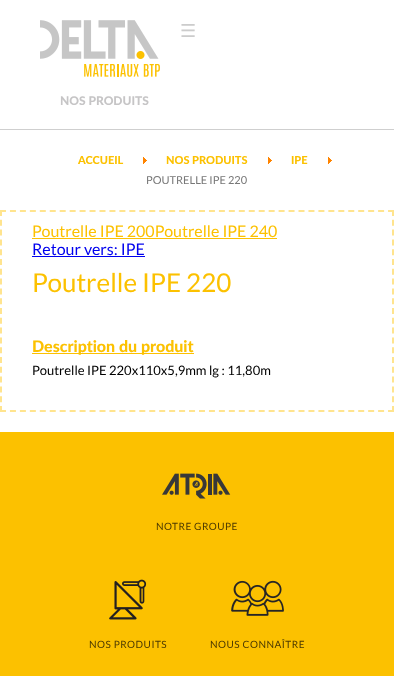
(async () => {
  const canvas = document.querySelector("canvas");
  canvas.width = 394;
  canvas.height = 676;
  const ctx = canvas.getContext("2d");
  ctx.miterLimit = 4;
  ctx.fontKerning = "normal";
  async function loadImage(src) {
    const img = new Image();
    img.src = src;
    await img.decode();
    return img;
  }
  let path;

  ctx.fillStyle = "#ffffff";
  ctx.fillRect(0, 0, 394, 676);
  ctx.drawImage(await loadImage("img/5.png"), 40, 20, 120, 57);
  ctx.drawImage(await loadImage("img/1.png"), 40, 20, 120, 57);
  ctx.fillStyle = "#fcc100";
  ctx.fillRect(0, 432, 394, 244);
  ctx.drawImage(await loadImage("img/2.png"), 162, 473, 69, 26);
  ctx.drawImage(await loadImage("img/3.png"), 109, 579, 38, 41);
  ctx.drawImage(await loadImage("img/4.png"), 231, 580, 53, 36);
  ctx.fillStyle = "#cfcfcf";
  ctx.fillRect(0, 129, 394, 1);
  ctx.drawImage(await loadImage("img/6.png"), 143, 157, 4, 7);
  ctx.drawImage(await loadImage("img/6.png"), 268, 157, 4, 7);
  ctx.drawImage(await loadImage("img/6.png"), 328, 157, 4, 7);
  path = new Path2D("M0 211H394");
  ctx.strokeStyle = "#ffe48e";
  ctx.lineWidth = 2;
  ctx.setLineDash([6, 3.95]);
  ctx.stroke(path);
  path = new Path2D("M393 210V412");
  ctx.setLineDash([6, 3.8]);
  ctx.stroke(path);
  path = new Path2D("M0 411H394");
  ctx.setLineDash([6, 3.95]);
  ctx.stroke(path);
  path = new Path2D("M1 210V412");
  ctx.setLineDash([6, 3.8]);
  ctx.stroke(path);
  for (const [x, y, w, h, color] of [
    [32, 238, 245, 1, "#fcc100"],
    [32, 256, 113, 1, "#0000ee"],
    [32, 353, 162, 1, "#fcc100"],
  ]) {
    ctx.fillStyle = color;
    ctx.fillRect(x, y, w, h);
  }
  ctx.font = "18px DejaVu Sans";
  ctx.fillStyle = "#cccccc";
  ctx.fillText("☰", 180, 37);
  ctx.letterSpacing = "0.5px";
  ctx.font = "10px Lato";
  ctx.fillStyle = "#4c3a00";
  for (const [text, x, y] of [
    ["NOTRE GROUPE", 156, 530],
    ["NOS PRODUITS", 89, 648],
    ["NOUS CONNAÎTRE", 210, 648],
  ]) {
    ctx.fillText(text, x, y);
  }
  ctx.letterSpacing = "0px";
  ctx.font = "900 12px Lato";
  ctx.fillStyle = "#c6c5c6";
  ctx.fillText("NOS PRODUITS", 60, 105);
  ctx.font = "900 11px Lato";
  ctx.fillStyle = "#fcc100";
  for (const [text, x, y] of [
    ["ACCUEIL", 78, 164],
    ["NOS PRODUITS", 166, 164],
    ["IPE", 291, 164],
  ]) {
    ctx.fillText(text, x, y);
  }
  ctx.font = "11px Lato";
  ctx.fillStyle = "#777777";
  ctx.fillText("POUTRELLE IPE 220", 146, 184);
  ctx.font = "16px Lato";
  ctx.fillStyle = "#fcc100";
  ctx.fillText("Poutrelle IPE 200Poutrelle IPE 240", 32, 237);
  ctx.fillStyle = "#0000ee";
  ctx.fillText("Retour vers: IPE", 32, 255);
  ctx.font = "26px Lato";
  ctx.fillStyle = "#fcc100";
  ctx.fillText("Poutrelle IPE 220", 32, 292);
  ctx.font = "900 16px Lato";
  ctx.fillText("Description du produit", 32, 352);
  ctx.font = "13px Lato";
  ctx.fillStyle = "#000000";
  ctx.fillText("Poutrelle IPE 220x110x5,9mm lg : 11,80m", 32, 375);
})();
